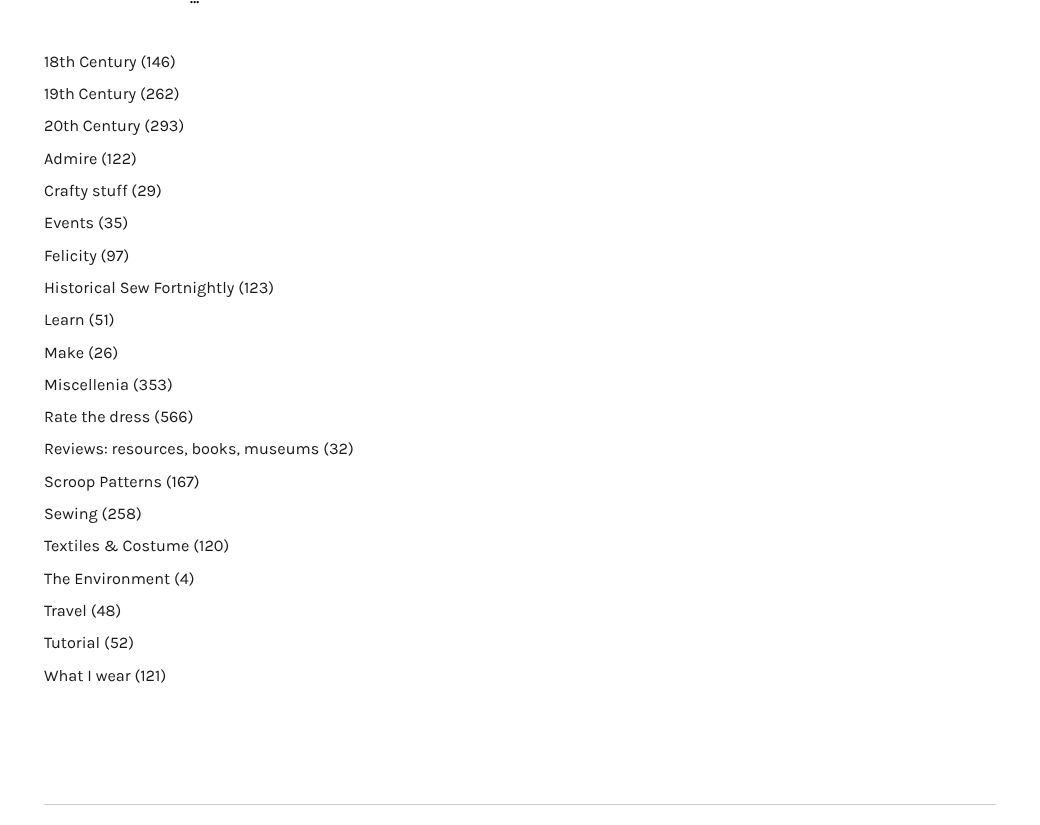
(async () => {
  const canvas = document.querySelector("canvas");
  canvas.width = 1040;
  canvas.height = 825;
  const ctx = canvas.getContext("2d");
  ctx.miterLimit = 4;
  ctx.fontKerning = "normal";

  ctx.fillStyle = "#ffffff";
  ctx.fillRect(0, 0, 1040, 825);
  ctx.fillStyle = "#cccccc";
  ctx.fillRect(44, 804, 952, 1);
  ctx.letterSpacing = "2px";
  ctx.font = "bold 14px Karla";
  ctx.fillStyle = "#000000";
  ctx.fillText("…", 190, 3);
  ctx.letterSpacing = "0px";
  ctx.font = "16.25px Karla";
  ctx.fillStyle = "#191919";
  for (const [text, x, y] of [
    ["18th Century (146)", 44, 67],
    ["19th Century (262)", 44, 99],
    ["20th Century (293)", 44, 131],
    ["Admire (122)", 44, 164],
    ["Crafty stuff (29)", 44, 196],
    ["Events (35)", 44, 228],
    ["Felicity (97)", 44, 261],
    ["Historical Sew Fortnightly (123)", 44, 293],
    ["Learn (51)", 44, 325],
    ["Make (26)", 44, 358],
    ["Miscellenia (353)", 44, 390],
    ["Rate the dress (566)", 44, 422],
    ["Reviews: resources, books, museums (32)", 44, 454],
    ["Scroop Patterns (167)", 44, 487],
    ["Sewing (258)", 44, 519],
    ["Textiles & Costume (120)", 44, 551],
    ["The Environment (4)", 44, 584],
    ["Travel (48)", 44, 616],
    ["Tutorial (52)", 44, 648],
    ["What I wear (121)", 44, 681],
  ]) {
    ctx.fillText(text, x, y);
  }
})();
